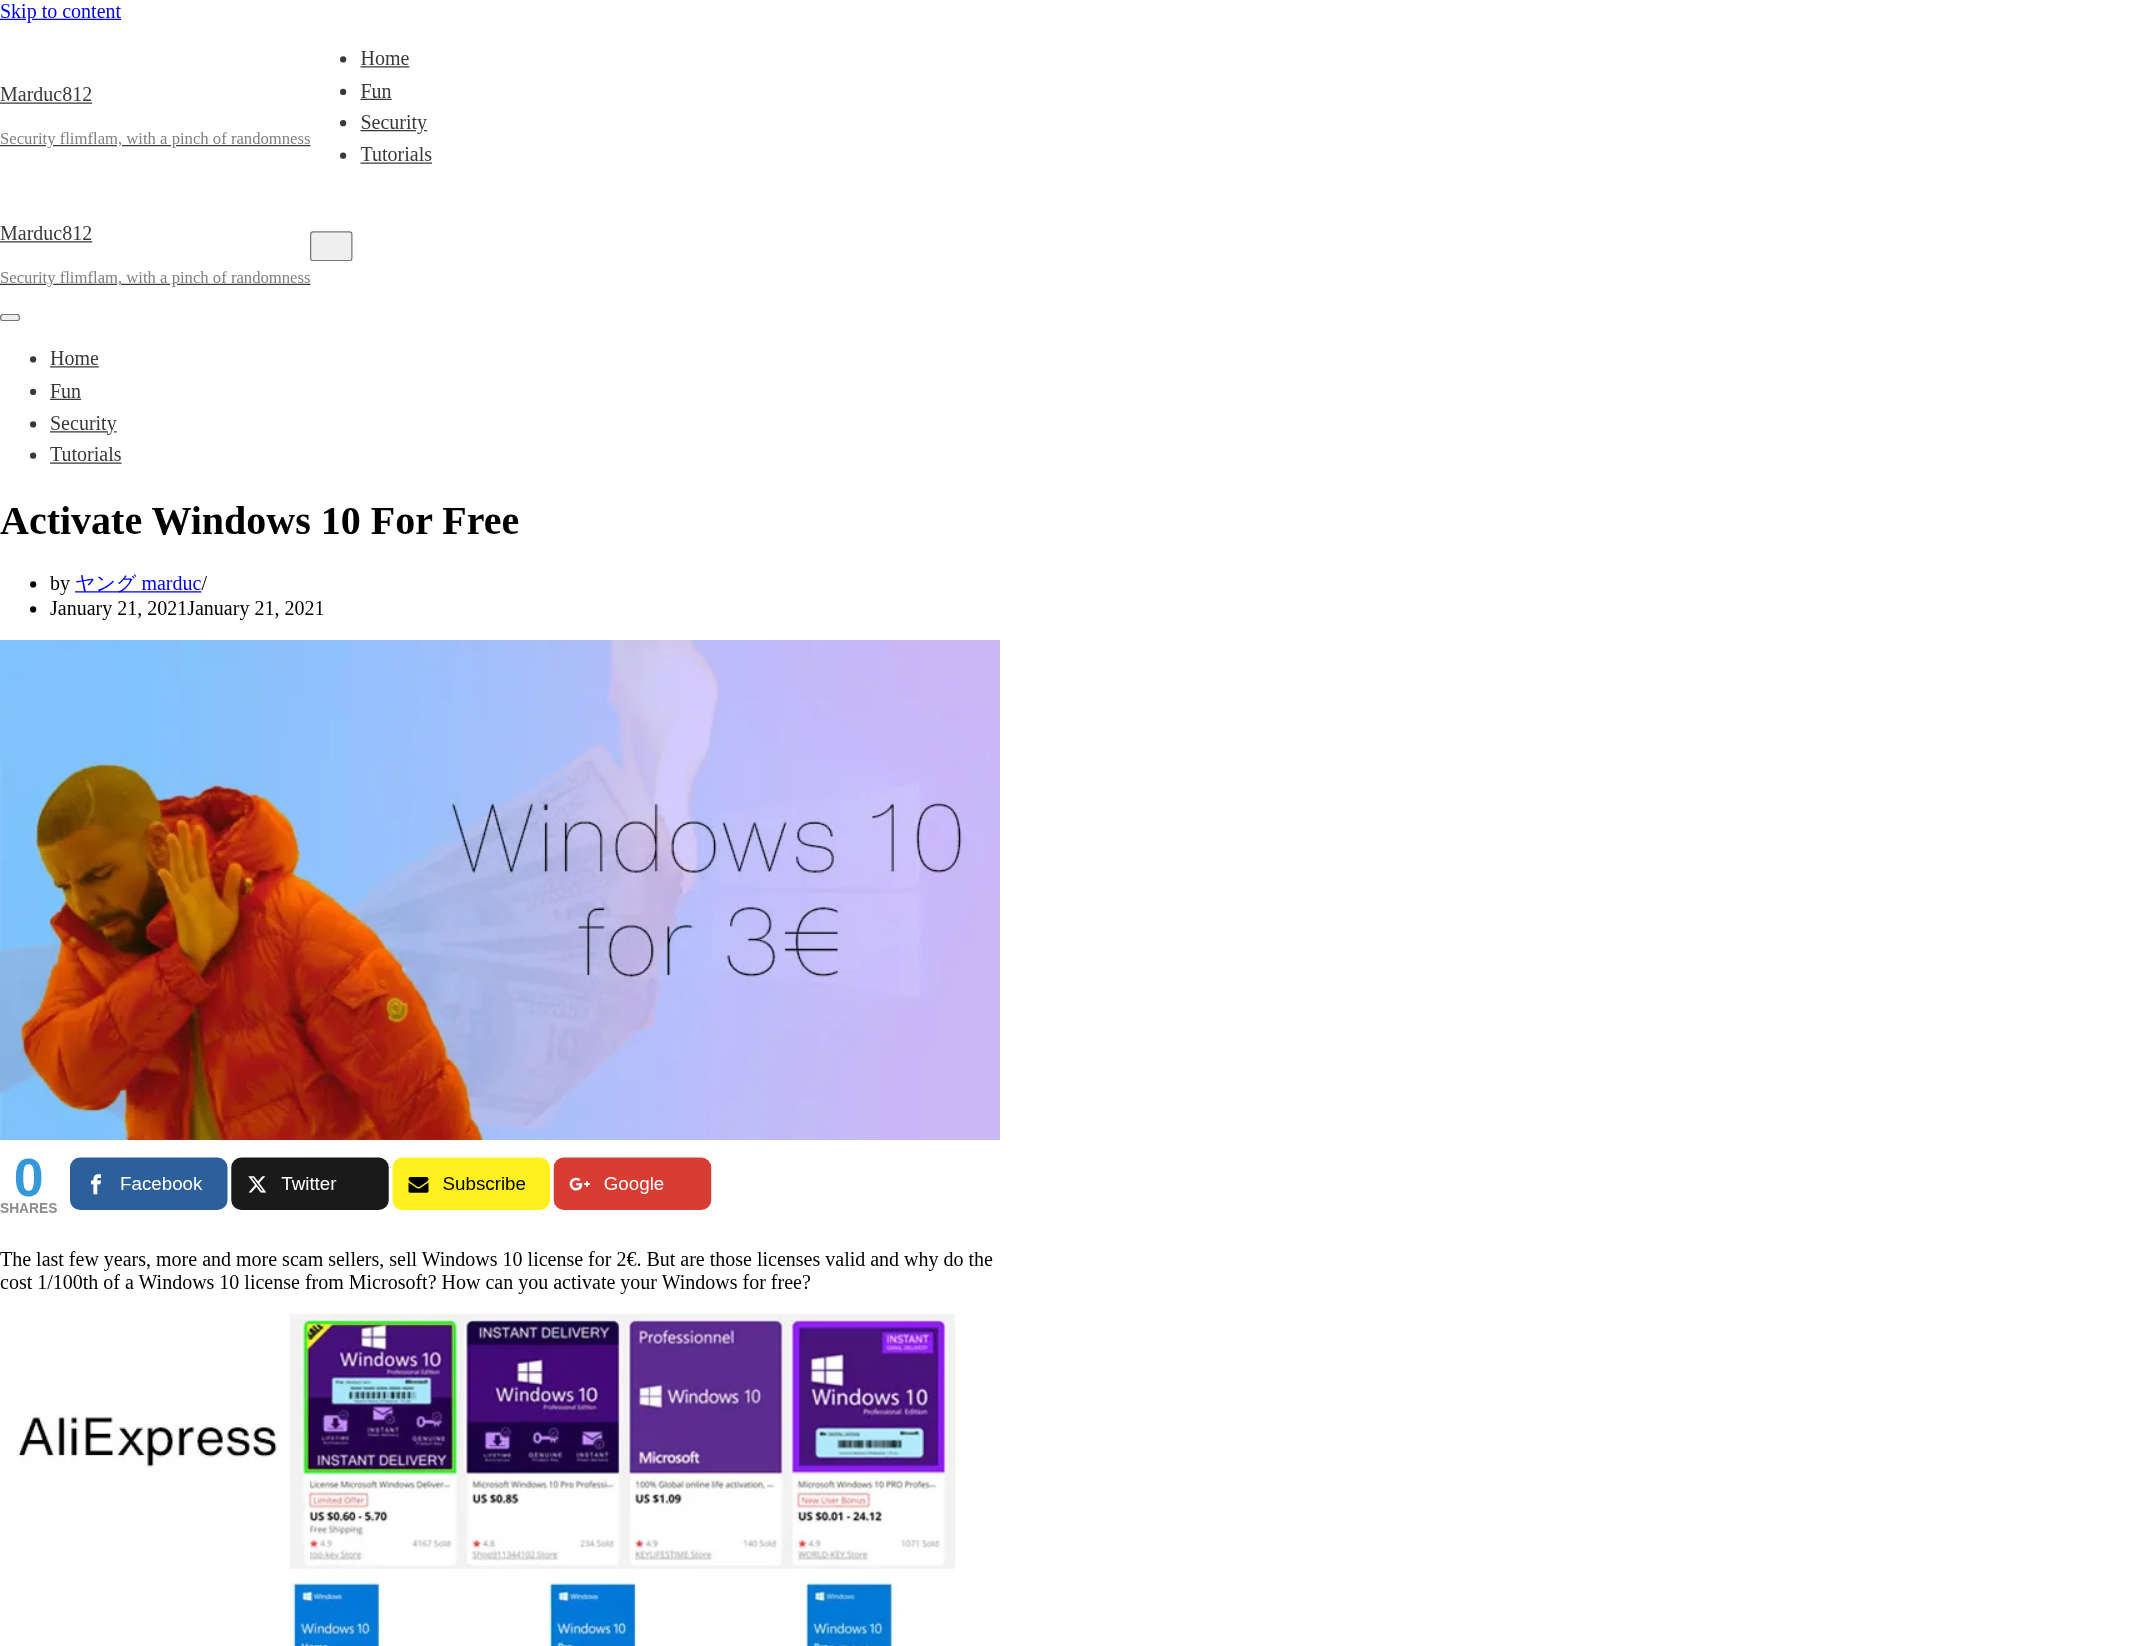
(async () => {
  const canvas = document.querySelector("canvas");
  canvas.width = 2144;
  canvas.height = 1646;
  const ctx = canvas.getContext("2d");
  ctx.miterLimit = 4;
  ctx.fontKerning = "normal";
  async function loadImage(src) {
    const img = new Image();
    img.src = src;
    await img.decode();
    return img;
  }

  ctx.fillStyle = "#ffffff";
  ctx.fillRect(0, 0, 2144, 1646);
  ctx.drawImage(await loadImage("img/1.png"), 0, 4, 1000, 1642);
})();
